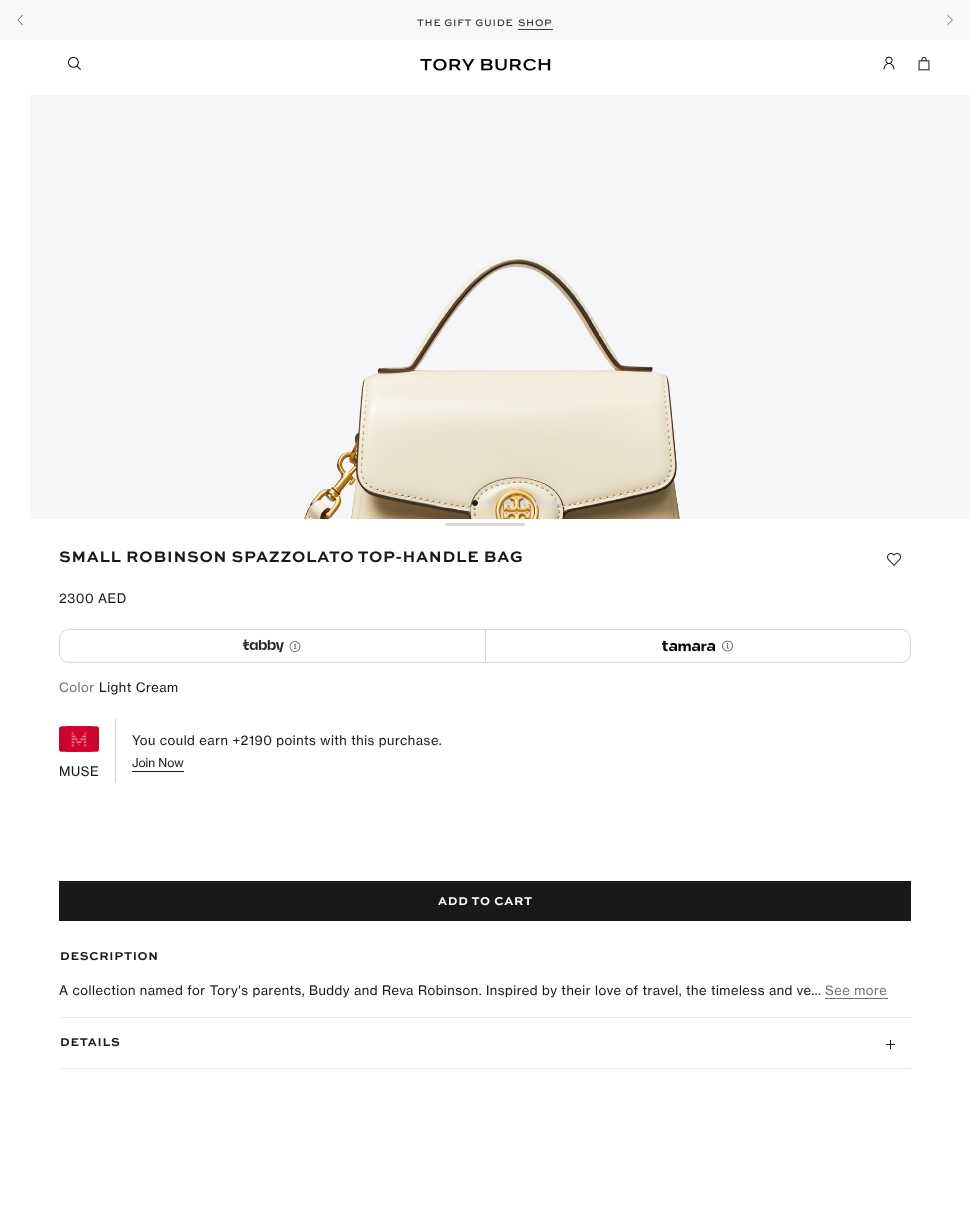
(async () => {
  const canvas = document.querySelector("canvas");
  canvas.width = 970;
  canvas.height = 1211;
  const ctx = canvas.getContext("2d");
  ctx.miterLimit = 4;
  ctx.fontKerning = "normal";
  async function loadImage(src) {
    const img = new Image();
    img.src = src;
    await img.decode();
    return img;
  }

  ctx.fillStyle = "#ffffff";
  ctx.fillRect(0, 0, 970, 1211);
  ctx.fillStyle = "#f7f6f8";
  ctx.fillRect(0, 0, 970, 40);
  ctx.drawImage(await loadImage("img/1.png"), 17, 15, 6, 10);
  ctx.fillStyle = "#3c3c3c";
  ctx.fillRect(518, 29, 35, 1);
  ctx.drawImage(await loadImage("img/2.png"), 947, 15, 6, 10);
  ctx.drawImage(await loadImage("img/3.png"), 68, 57, 13, 13);
  ctx.drawImage(await loadImage("img/4.png"), 420, 58, 131, 13);
  ctx.drawImage(await loadImage("img/5.png"), 883, 56, 12, 14);
  ctx.drawImage(await loadImage("img/6.png"), 918, 56, 12, 15);
  ctx.fillStyle = "#f6f6f8";
  ctx.fillRect(30, 95, 940, 424);
  ctx.drawImage(await loadImage("img/7.png"), 303, 256, 380, 263);
  ctx.fillStyle = "#1c1c1c";
  ctx.beginPath();
  ctx.arc(475, 503, 2.5, 0, Math.PI * 2);
  ctx.fill();
  ctx.strokeStyle = "#1c1c1c";
  ctx.stroke();
  ctx.fillStyle = "#d1d4d7";
  ctx.beginPath();
  ctx.arc(491, 503, 2.5, 0, Math.PI * 2);
  ctx.fill();
  ctx.strokeStyle = "#d1d4d7";
  ctx.stroke();
  ctx.beginPath();
  ctx.arc(507, 503, 2.5, 0, Math.PI * 2);
  ctx.fill();
  ctx.stroke();
  ctx.beginPath();
  ctx.arc(523, 503, 2.5, 0, Math.PI * 2);
  ctx.fill();
  ctx.stroke();
  ctx.beginPath();
  ctx.arc(539, 503, 2.5, 0, Math.PI * 2);
  ctx.fill();
  ctx.stroke();
  ctx.beginPath();
  ctx.arc(555, 503, 2.5, 0, Math.PI * 2);
  ctx.fill();
  ctx.stroke();
  ctx.fillStyle = "#d8d8d8";
  ctx.beginPath();
  ctx.roundRect(445, 523, 80, 3, 1.5);
  ctx.fill();
  ctx.drawImage(await loadImage("img/8.png"), 887, 553, 14, 13);
  ctx.beginPath();
  ctx.roundRect(59.5, 629.5, 851, 33, 9.5);
  ctx.strokeStyle = "#d4d4d4";
  ctx.stroke();
  ctx.drawImage(await loadImage("img/9.png"), 243, 639, 41, 14);
  ctx.drawImage(await loadImage("img/10.png"), 289, 641, 12, 11);
  ctx.fillStyle = "#d4d4d4";
  ctx.fillRect(485, 630, 1, 32);
  ctx.drawImage(await loadImage("img/11.png"), 662, 640, 53, 12);
  ctx.drawImage(await loadImage("img/12.png"), 722, 640, 11, 12);
  ctx.fillStyle = "#191919";
  ctx.fillRect(132, 771, 52, 1);
  ctx.fillStyle = "#d4d4d4";
  ctx.fillRect(115, 719, 1, 64);
  ctx.drawImage(await loadImage("img/13.png"), 59, 726, 40, 26);
  for (const [x, y, w, h, color] of [
    [59, 881, 852, 40, "#191919"],
    [59, 1017, 852, 1, "#e8e9eb"],
    [825, 998, 63, 1, "#6c717a"],
    [59, 1068, 852, 1, "#e8e9eb"],
    [886, 1044, 9, 1, "#191919"],
    [890, 1040, 1, 9, "#191919"],
  ]) {
    ctx.fillStyle = color;
    ctx.fillRect(x, y, w, h);
  }
  ctx.letterSpacing = "0.75px";
  ctx.font = "500 10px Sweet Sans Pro";
  ctx.fillStyle = "#3c3c3c";
  ctx.fillText("THE GIFT GUIDE", 417, 26);
  ctx.fillText("SHOP", 518, 26);
  ctx.font = "bold 16px Sweet Sans Pro";
  ctx.fillStyle = "#191919";
  ctx.fillText("SMALL ROBINSON SPAZZOLATO TOP-HANDLE BAG", 59, 562);
  ctx.letterSpacing = "0.5px";
  ctx.font = "13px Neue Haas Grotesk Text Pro";
  ctx.fillText("2300 AED", 59, 603);
  ctx.fillStyle = "#6c717a";
  ctx.fillText("Color", 59, 692);
  ctx.fillStyle = "#191919";
  ctx.fillText("Light Cream", 99, 692);
  ctx.fillText("You could earn +2190 points with this purchase.", 132, 745);
  ctx.letterSpacing = "0px";
  ctx.font = "12px Neue Haas Grotesk Text Pro";
  ctx.fillText("Join Now", 132, 767);
  ctx.letterSpacing = "0.5px";
  ctx.font = "13px Neue Haas Grotesk Text Pro";
  ctx.fillText("MUSE", 59, 776);
  ctx.letterSpacing = "0.75px";
  ctx.font = "bold 12px Sweet Sans Pro";
  ctx.fillStyle = "#ffffff";
  ctx.fillText("ADD TO CART", 438, 905);
  ctx.fillStyle = "#191919";
  ctx.fillText("DESCRIPTION", 60, 960);
  ctx.letterSpacing = "0.5px";
  ctx.font = "13px Neue Haas Grotesk Text Pro";
  ctx.fillText("A collection named for Tory's parents, Buddy and Reva Robinson. Inspired by their love of travel, the timeless and ve...", 59, 995);
  ctx.fillStyle = "#6c717a";
  ctx.fillText("See more", 825, 995);
  ctx.letterSpacing = "0.75px";
  ctx.font = "bold 12px Sweet Sans Pro";
  ctx.fillStyle = "#191919";
  ctx.fillText("DETAILS", 60, 1046);
})();
